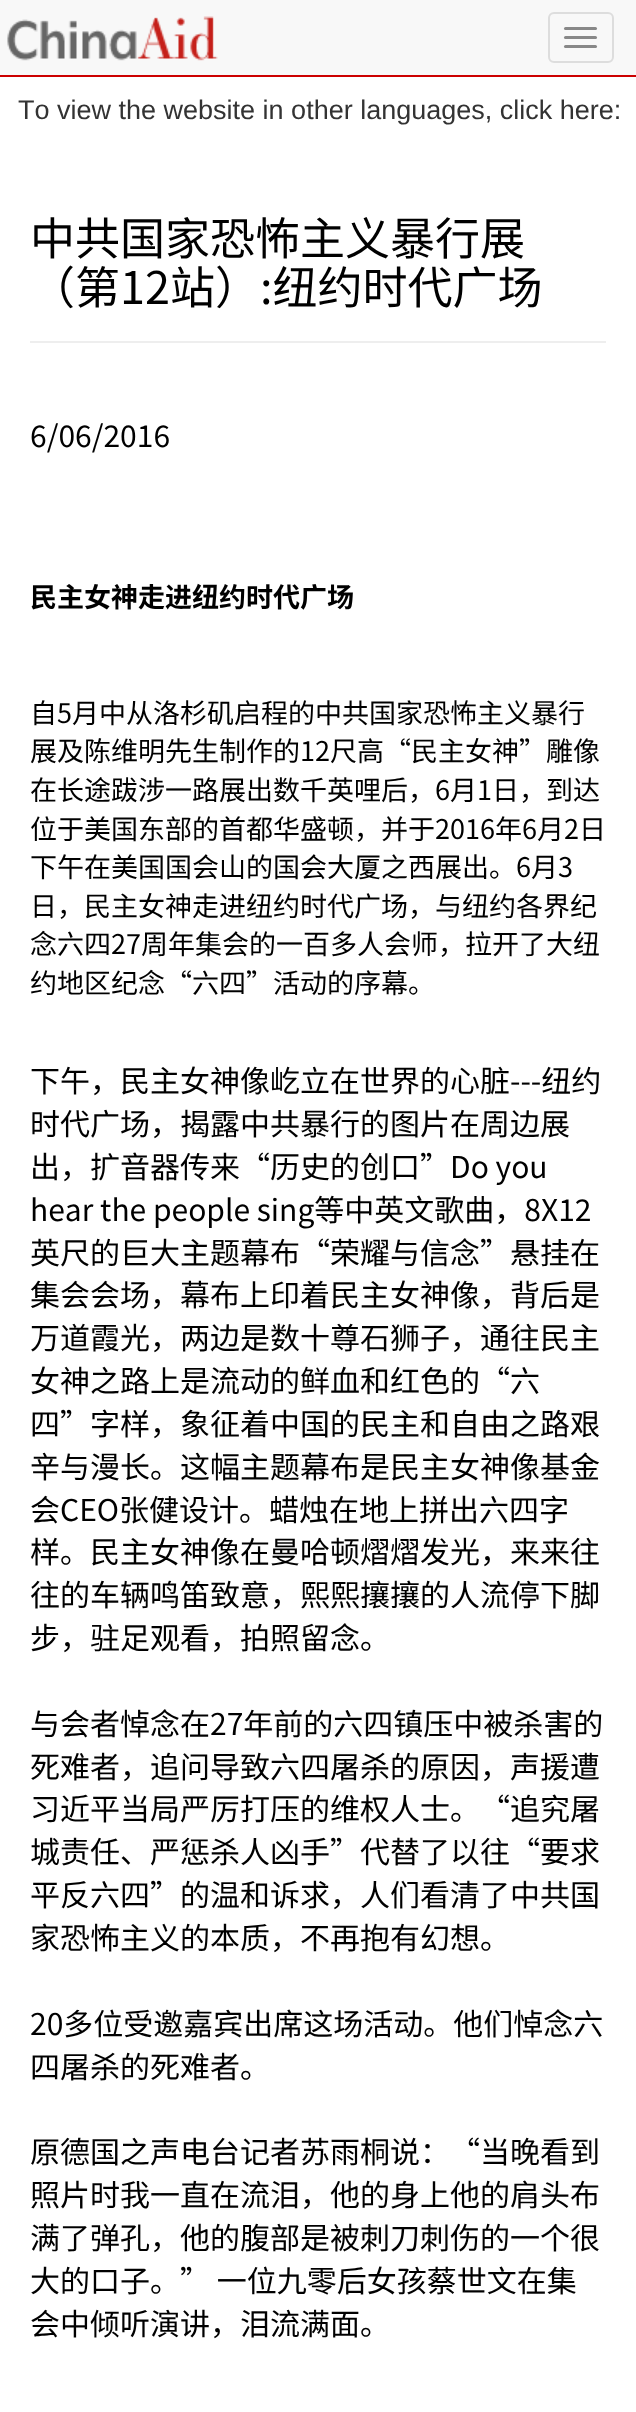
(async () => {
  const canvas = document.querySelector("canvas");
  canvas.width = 636;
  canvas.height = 2412;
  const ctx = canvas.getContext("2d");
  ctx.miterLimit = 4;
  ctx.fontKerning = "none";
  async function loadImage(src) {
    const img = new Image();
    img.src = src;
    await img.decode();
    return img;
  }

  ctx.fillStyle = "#ffffff";
  ctx.fillRect(0, 0, 636, 2412);
  ctx.fillStyle = "#f8f8f8";
  ctx.fillRect(0, 0, 636, 75);
  ctx.fillStyle = "#cc0000";
  ctx.fillRect(0, 75, 636, 2);
  ctx.drawImage(await loadImage("img/1.png"), 7, 16, 211, 45);
  ctx.beginPath();
  ctx.roundRect(549, 13, 64, 49, 5);
  ctx.strokeStyle = "#dddddd";
  ctx.lineWidth = 2;
  ctx.stroke();
  ctx.fillStyle = "#888888";
  ctx.beginPath();
  ctx.roundRect(564, 27, 33, 3, 1.5);
  ctx.fill();
  ctx.beginPath();
  ctx.roundRect(564, 36, 33, 3, 1.5);
  ctx.fill();
  ctx.beginPath();
  ctx.roundRect(564, 45, 33, 3, 1.5);
  ctx.fill();
  ctx.fillStyle = "#eeeeee";
  ctx.fillRect(30, 341, 576, 2);
  ctx.font = "27px Liberation Sans";
  ctx.fillStyle = "#333333";
  ctx.fillText("To view the website in other languages, click here:", 18, 119);
  ctx.font = "45px Noto Sans SC";
  ctx.fillStyle = "#000000";
  ctx.fillText("中共国家恐怖主义暴行展", 30, 255);
  ctx.fillText("（第12站）:纽约时代广场", 30, 304);
  ctx.font = "30px Noto Sans SC";
  ctx.fillText("6/06/2016", 30, 447);
  ctx.font = "bold 27px Noto Sans SC";
  ctx.fillText("民主女神走进纽约时代广场", 30, 607);
  ctx.font = "27px Noto Sans SC";
  for (const [text, x, y] of [
    ["自5月中从洛杉矶启程的中共国家恐怖主义暴行", 30, 723],
    ["展及陈维明先生制作的12尺高“民主女神”雕像", 30, 761],
    ["在长途跋涉一路展出数千英哩后，6月1日，到达", 30, 800],
    ["位于美国东部的首都华盛顿，并于2016年6月2日", 30, 839],
    ["下午在美国国会山的国会大厦之西展出。6月3", 30, 877],
    ["日，民主女神走进纽约时代广场，与纽约各界纪", 30, 916],
    ["念六四27周年集会的一百多人会师，拉开了大纽", 30, 954],
    ["约地区纪念“六四”活动的序幕。", 30, 993],
  ]) {
    ctx.fillText(text, x, y);
  }
  ctx.font = "30px Noto Sans SC";
  for (const [text, x, y] of [
    ["下午，民主女神像屹立在世界的心脏---纽约", 30, 1092],
    ["时代广场，揭露中共暴行的图片在周边展", 30, 1135],
    ["出，扩音器传来“历史的创口”Do you", 30, 1178],
    ["hear the people sing等中英文歌曲，8X12", 30, 1221],
    ["英尺的巨大主题幕布“荣耀与信念”悬挂在", 30, 1264],
    ["集会会场，幕布上印着民主女神像，背后是", 30, 1306],
    ["万道霞光，两边是数十尊石狮子，通往民主", 30, 1349],
    ["女神之路上是流动的鲜血和红色的“六", 30, 1392],
    ["四”字样，象征着中国的民主和自由之路艰", 30, 1435],
    ["辛与漫长。这幅主题幕布是民主女神像基金", 30, 1478],
    ["会CEO张健设计。蜡烛在地上拼出六四字", 30, 1521],
    ["样。民主女神像在曼哈顿熠熠发光，来来往", 30, 1563],
    ["往的车辆鸣笛致意，熙熙攘攘的人流停下脚", 30, 1606],
    ["步，驻足观看，拍照留念。", 30, 1649],
    ["与会者悼念在27年前的六四镇压中被杀害的", 30, 1735],
    ["死难者，追问导致六四屠杀的原因，声援遭", 30, 1778],
    ["习近平当局严厉打压的维权人士。“追究屠", 30, 1820],
    ["城责任、严惩杀人凶手”代替了以往“要求", 30, 1863],
    ["平反六四”的温和诉求，人们看清了中共国", 30, 1906],
    ["家恐怖主义的本质，不再抱有幻想。", 30, 1949],
    ["20多位受邀嘉宾出席这场活动。他们悼念六", 30, 2035],
    ["四屠杀的死难者。", 30, 2078],
    ["原德国之声电台记者苏雨桐说：“当晚看到", 30, 2163],
    ["照片时我一直在流泪，他的身上他的肩头布", 30, 2206],
    ["满了弹孔，他的腹部是被刺刀刺伤的一个很", 30, 2249],
    ["大的口子。” 一位九零后女孩蔡世文在集", 30, 2292],
    ["会中倾听演讲，泪流满面。", 30, 2335],
  ]) {
    ctx.fillText(text, x, y);
  }
})();
